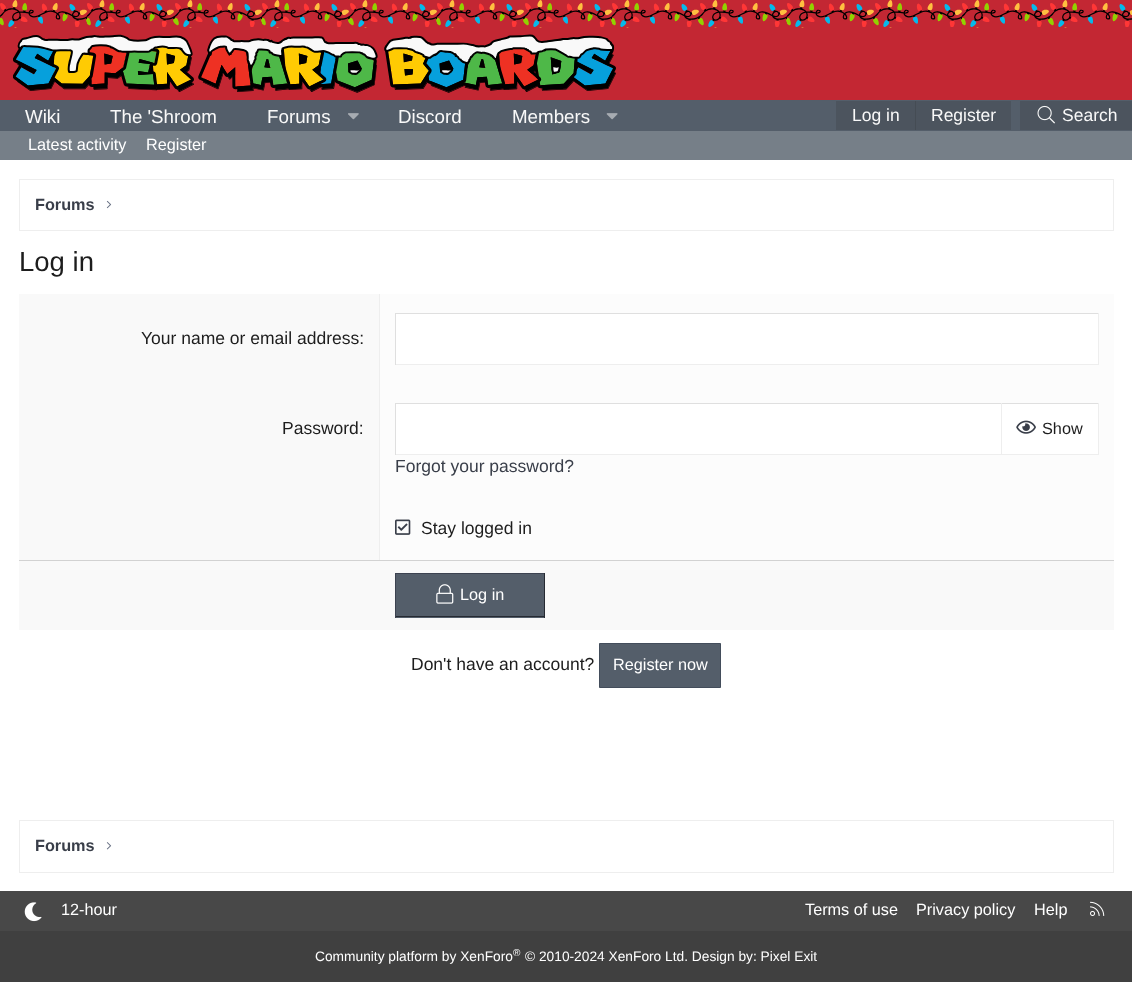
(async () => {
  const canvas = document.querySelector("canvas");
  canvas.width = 1132;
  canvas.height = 982;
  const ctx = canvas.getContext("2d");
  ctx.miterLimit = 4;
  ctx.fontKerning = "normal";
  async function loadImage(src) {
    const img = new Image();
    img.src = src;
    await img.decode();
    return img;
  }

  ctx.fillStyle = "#c32733";
  ctx.fillRect(0, 0, 1132, 982);
  ctx.drawImage(await loadImage("img/1.png"), 0, 0, 1132, 28);
  ctx.drawImage(await loadImage("img/2.png"), 13, 34, 603, 59);
  ctx.fillStyle = "#545e6a";
  ctx.fillRect(0, 100, 1132, 31);
  ctx.drawImage(await loadImage("img/3.png"), 348, 113, 11, 7);
  ctx.drawImage(await loadImage("img/4.png"), 606, 113, 12, 7);
  for (const [x, y, w, h, color] of [
    [836, 101, 175, 29, "#4c545e"],
    [915, 101, 1, 29, "#454c54"],
    [1020, 101, 112, 29, "#4c545e"],
  ]) {
    ctx.fillStyle = color;
    ctx.fillRect(x, y, w, h);
  }
  ctx.drawImage(await loadImage("img/5.png"), 1037, 105, 18, 19);
  ctx.fillStyle = "#767f88";
  ctx.fillRect(0, 131, 1132, 29);
  ctx.fillStyle = "#ffffff";
  ctx.fillRect(0, 160, 1132, 731);
  ctx.strokeStyle = "#eeeeee";
  ctx.strokeRect(19.5, 179.5, 1094, 51);
  ctx.drawImage(await loadImage("img/6.png"), 106, 200, 6, 9);
  for (const [x, y, w, h, color] of [
    [380, 294, 734, 266, "#fcfcfc"],
    [19, 294, 360, 266, "#f9f9f9"],
    [379, 294, 1, 266, "#eeeeee"],
    [396, 314, 702, 50, "#ffffff"],
    [395, 313, 704, 1, "#dfdfdf"],
    [1098, 313, 1, 52, "#eeeeee"],
    [395, 364, 704, 1, "#eeeeee"],
    [395, 313, 1, 52, "#dfdfdf"],
    [396, 404, 605, 50, "#ffffff"],
    [395, 403, 704, 1, "#dfdfdf"],
    [395, 454, 606, 1, "#eeeeee"],
    [395, 403, 1, 52, "#dfdfdf"],
    [1002, 404, 96, 50, "#ffffff"],
    [1098, 403, 1, 52, "#eeeeee"],
    [1001, 454, 98, 1, "#eeeeee"],
    [1001, 403, 1, 52, "#eeeeee"],
  ]) {
    ctx.fillStyle = color;
    ctx.fillRect(x, y, w, h);
  }
  ctx.drawImage(await loadImage("img/7.png"), 1016, 420, 20, 14);
  ctx.drawImage(await loadImage("img/8.png"), 395, 519, 16, 16);
  for (const [x, y, w, h, color] of [
    [19, 561, 1095, 69, "#f9f9f9"],
    [19, 560, 1095, 1, "#d2d2d2"],
    [396, 574, 148, 44, "#545e6a"],
    [395, 573, 150, 1, "#3c4250"],
    [544, 573, 1, 45, "#262a32"],
    [395, 616, 150, 1, "#262a32"],
    [395, 573, 1, 45, "#3c4250"],
  ]) {
    ctx.fillStyle = color;
    ctx.fillRect(x, y, w, h);
  }
  ctx.drawImage(await loadImage("img/9.png"), 436, 584, 18, 20);
  ctx.fillStyle = "#545e6a";
  ctx.beginPath();
  ctx.rect(599.5, 643.5, 121, 44);
  ctx.fill();
  ctx.strokeStyle = "#434d5b";
  ctx.stroke();
  ctx.strokeStyle = "#eeeeee";
  ctx.strokeRect(19.5, 820.5, 1094, 52);
  ctx.drawImage(await loadImage("img/10.png"), 106, 842, 6, 8);
  ctx.fillStyle = "#484848";
  ctx.fillRect(0, 891, 1132, 40);
  ctx.drawImage(await loadImage("img/11.png"), 24, 902, 18, 20);
  ctx.drawImage(await loadImage("img/12.png"), 1090, 901, 15, 15);
  ctx.fillStyle = "#404040";
  ctx.fillRect(0, 931, 1132, 51);
  ctx.font = "18.75px Liberation Sans";
  ctx.fillStyle = "#f9f9f9";
  for (const [text, x, y] of [
    ["Wiki", 25, 123],
    ["The 'Shroom", 110, 123],
    ["Forums", 267, 123],
    ["Discord", 398, 123],
    ["Members", 512, 123],
  ]) {
    ctx.fillText(text, x, y);
  }
  ctx.font = "17.5px Liberation Sans";
  for (const [text, x, y] of [
    ["Log in", 852, 121],
    ["Register", 931, 121],
    ["Search", 1062, 121],
  ]) {
    ctx.fillText(text, x, y);
  }
  ctx.font = "16.25px Liberation Sans";
  ctx.fillStyle = "#ffffff";
  ctx.fillText("Latest activity", 28, 150);
  ctx.fillText("Register", 146, 150);
  ctx.font = "bold 16.25px Liberation Sans";
  ctx.fillStyle = "#393e49";
  ctx.fillText("Forums", 35, 210);
  ctx.font = "27.5px Liberation Sans";
  ctx.fillStyle = "#1d1d1d";
  ctx.fillText("Log in", 19, 271);
  ctx.font = "17.5px Liberation Sans";
  ctx.fillText("Your name or email address:", 141, 344);
  ctx.fillText("Password:", 282, 434);
  ctx.font = "16.25px Liberation Sans";
  ctx.fillText("Show", 1042, 434);
  ctx.font = "17.5px Liberation Sans";
  ctx.fillStyle = "#393e49";
  ctx.fillText("Forgot your password?", 395, 472);
  ctx.fillStyle = "#1d1d1d";
  ctx.fillText("Stay logged in", 421, 534);
  ctx.font = "16.25px Liberation Sans";
  ctx.fillStyle = "#ffffff";
  ctx.fillText("Log in", 460, 600);
  ctx.font = "17.5px Liberation Sans";
  ctx.fillStyle = "#1d1d1d";
  ctx.fillText("Don't have an account?", 411, 670);
  ctx.font = "16.25px Liberation Sans";
  ctx.fillStyle = "#ffffff";
  ctx.fillText("Register now", 613, 670);
  ctx.font = "bold 16.25px Liberation Sans";
  ctx.fillStyle = "#393e49";
  ctx.fillText("Forums", 35, 851);
  ctx.font = "16.25px Liberation Sans";
  ctx.fillStyle = "#ffffff";
  for (const [text, x, y] of [
    ["12-hour", 61, 915],
    ["Terms of use", 805, 915],
    ["Privacy policy", 916, 915],
    ["Help", 1034, 915],
  ]) {
    ctx.fillText(text, x, y);
  }
  ctx.font = "13.75px Liberation Sans";
  ctx.fillText("Community platform by XenForo", 315, 961);
  ctx.font = "10px Liberation Sans";
  ctx.fillText("®", 513, 956);
  ctx.font = "13.75px Liberation Sans";
  ctx.fillText("© 2010-2024 XenForo Ltd. Design by: Pixel Exit", 525, 961);
})();
